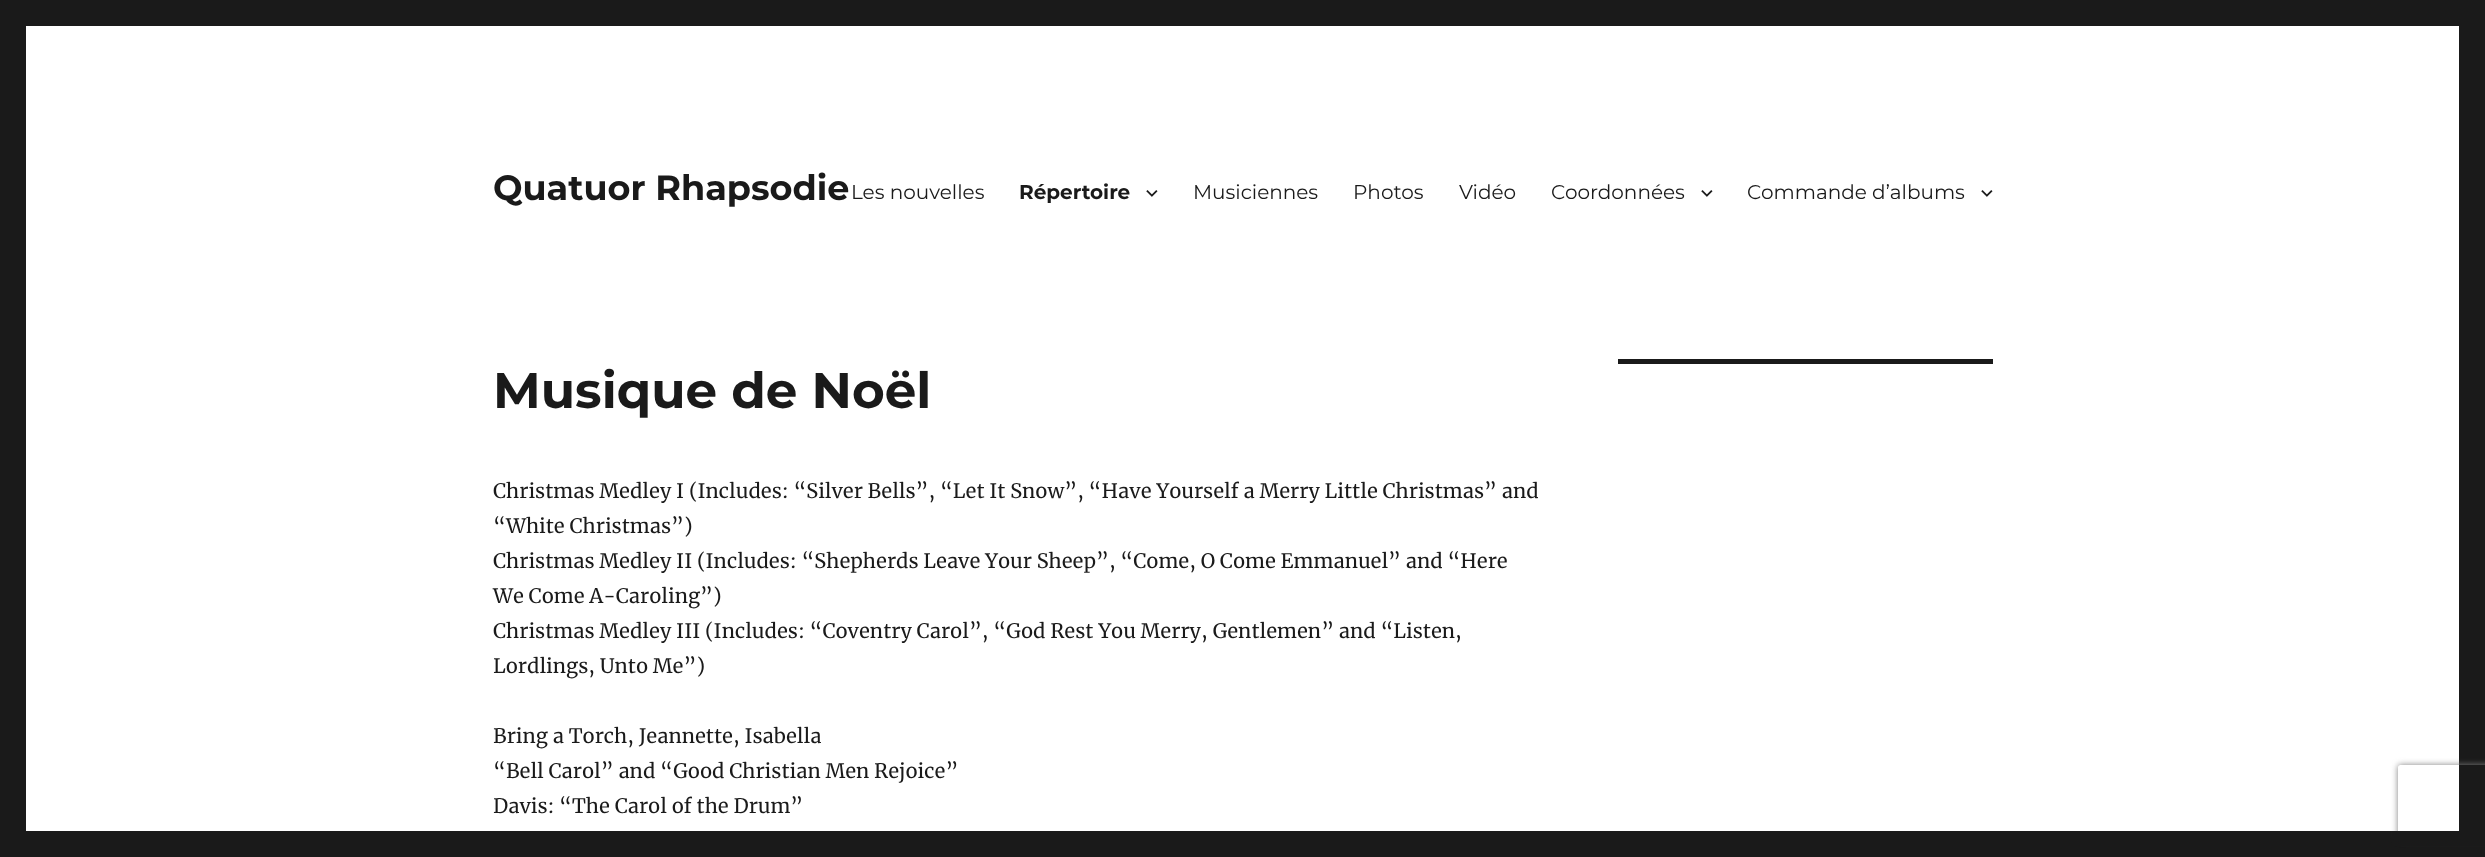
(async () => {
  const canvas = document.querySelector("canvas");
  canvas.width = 2485;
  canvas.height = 857;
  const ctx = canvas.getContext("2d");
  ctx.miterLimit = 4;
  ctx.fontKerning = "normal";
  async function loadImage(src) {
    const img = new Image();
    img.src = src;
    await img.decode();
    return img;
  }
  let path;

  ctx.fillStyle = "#1a1a1a";
  ctx.fillRect(0, 0, 2485, 857);
  ctx.fillStyle = "#ffffff";
  ctx.fillRect(26, 26, 2433, 805);
  ctx.drawImage(await loadImage("img/1.png"), 1146, 190, 12, 7);
  ctx.drawImage(await loadImage("img/1.png"), 1701, 190, 12, 7);
  ctx.drawImage(await loadImage("img/1.png"), 1981, 190, 12, 7);
  ctx.fillStyle = "#1a1a1a";
  ctx.fillRect(1618, 359, 375, 5);
  ctx.save();
  path = new Path2D("M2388 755H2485V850H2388ZM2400.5 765H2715.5C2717 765 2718 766 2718 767.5V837.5C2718 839 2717 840 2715.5 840H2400.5C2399 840 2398 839 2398 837.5V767.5C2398 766 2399 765 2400.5 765Z");
  ctx.clip(path, "evenodd");
  ctx.fillStyle = "#808080";
  ctx.filter = "blur(3px)";
  ctx.beginPath();
  ctx.roundRect(2398, 765, 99, 75, 2.5);
  ctx.fill();
  ctx.filter = "none";
  ctx.restore();
  ctx.fillRect(2392, 831, 93, 15);
  ctx.font = "100 35px Montserrat";
  ctx.fillText("Quatuor Rhapsodie", 493, 200);
  ctx.font = "100 20px 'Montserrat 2'";
  ctx.fillText("Les nouvelles", 851, 199);
  ctx.font = "100 20px Montserrat";
  ctx.fillText("Répertoire", 1019, 199);
  ctx.font = "100 20px 'Montserrat 2'";
  for (const [text, x, y] of [
    ["Musiciennes", 1193, 199],
    ["Photos", 1353, 199],
    ["Vidéo", 1459, 199],
    ["Coordonnées", 1551, 199],
    ["Commande d’albums", 1747, 199],
  ]) {
    ctx.fillText(text, x, y);
  }
  ctx.font = "100 50px Montserrat";
  ctx.fillText("Musique de Noël", 493, 408);
  ctx.font = "20px Merriweather";
  for (const [text, x, y] of [
    ["Christmas Medley I (Includes: “Silver Bells”, “Let It Snow”, “Have Yourself a Merry Little Christmas” and", 493, 498],
    ["“White Christmas”)", 493, 533],
    ["Christmas Medley II (Includes: “Shepherds Leave Your Sheep”, “Come, O Come Emmanuel” and “Here", 493, 568],
    ["We Come A-Caroling”)", 493, 603],
    ["Christmas Medley III (Includes: “Coventry Carol”, “God Rest You Merry, Gentlemen” and “Listen,", 493, 638],
    ["Lordlings, Unto Me”)", 493, 673],
    ["Bring a Torch, Jeannette, Isabella", 493, 743],
    ["“Bell Carol” and “Good Christian Men Rejoice”", 493, 778],
    ["Davis: “The Carol of the Drum”", 493, 813],
  ]) {
    ctx.fillText(text, x, y);
  }
})();
